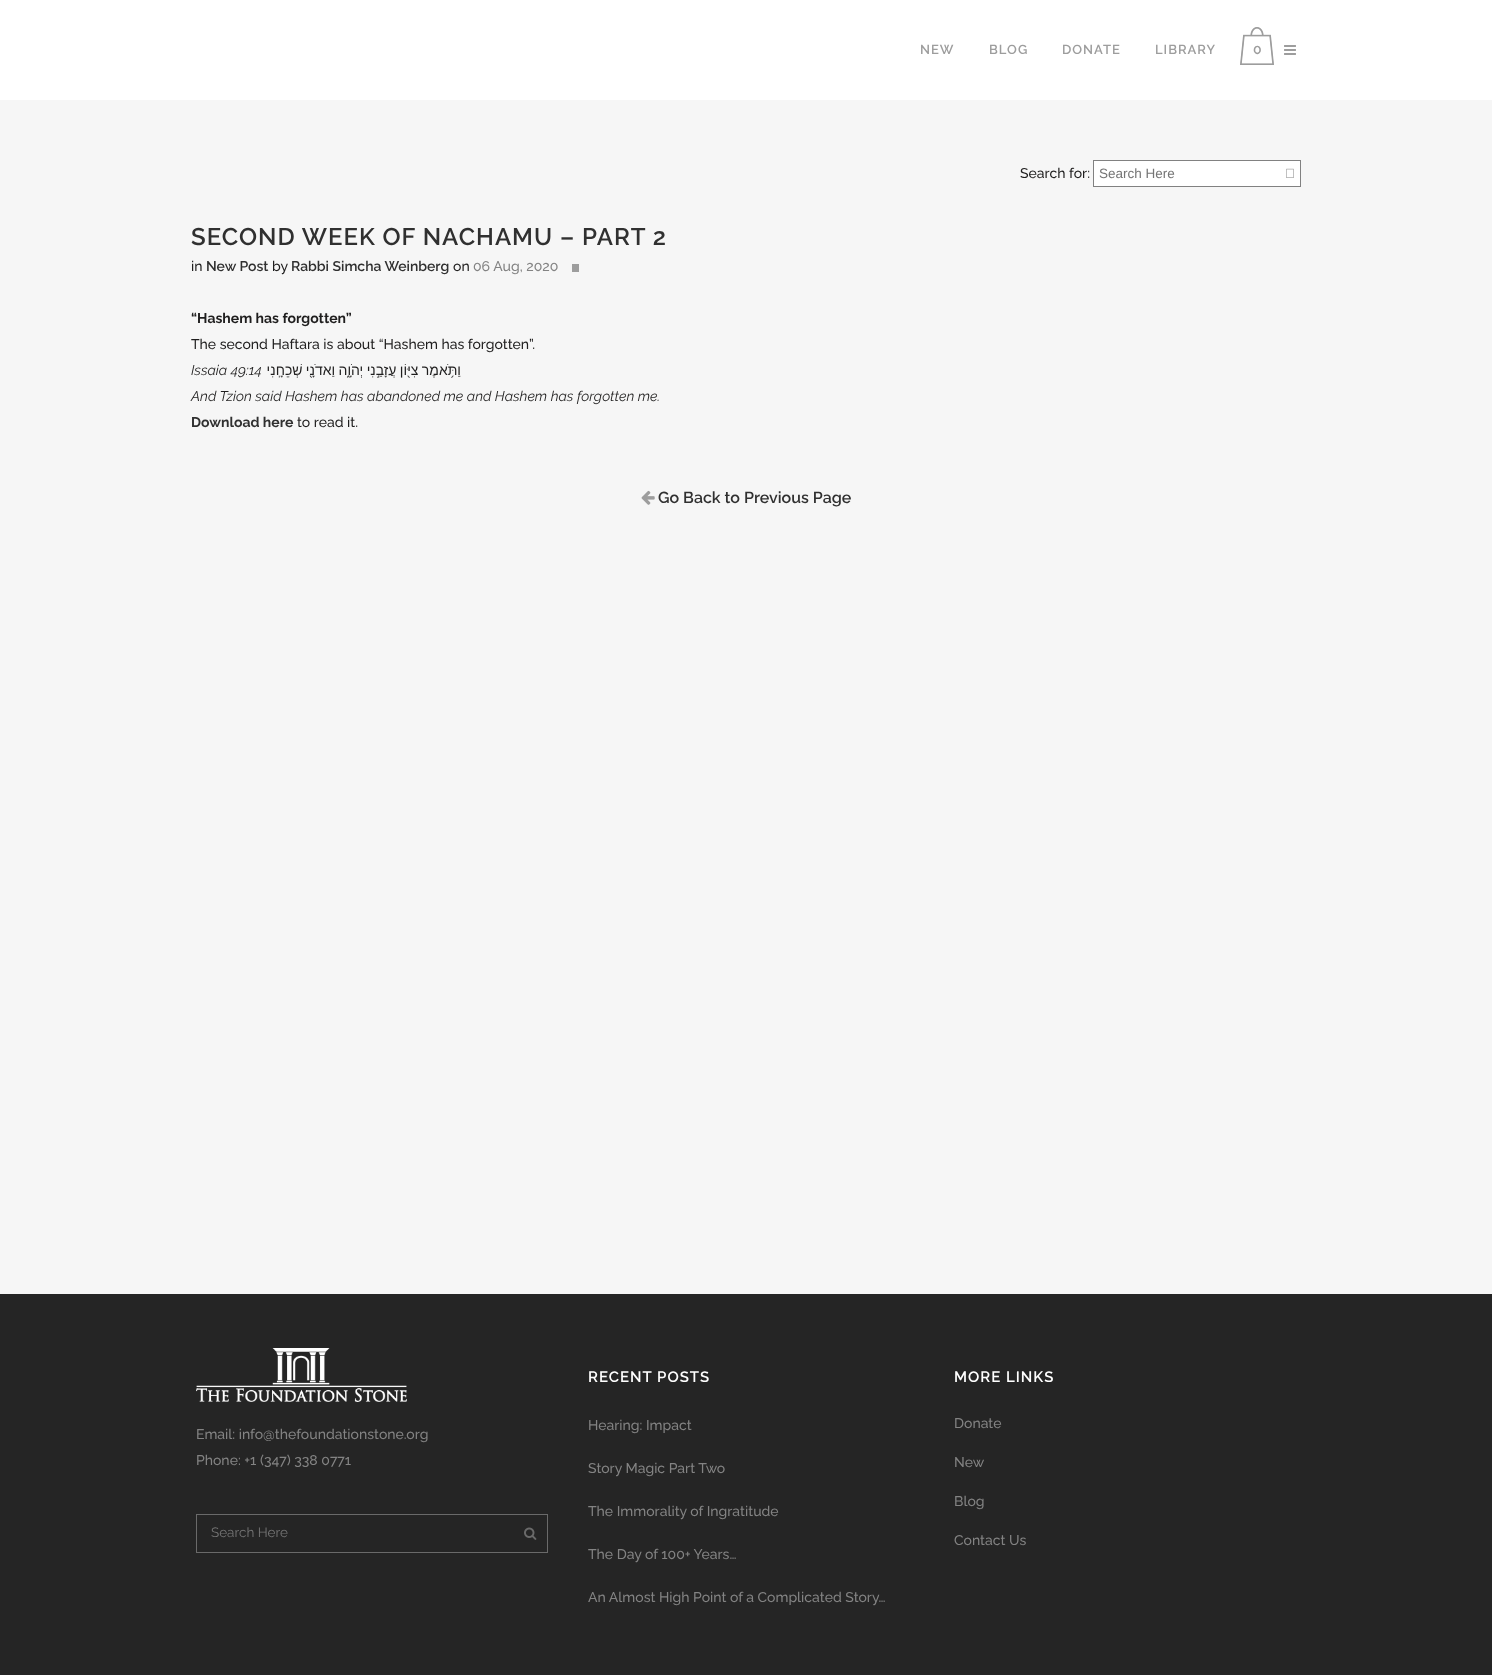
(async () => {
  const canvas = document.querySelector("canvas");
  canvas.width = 1492;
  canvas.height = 1675;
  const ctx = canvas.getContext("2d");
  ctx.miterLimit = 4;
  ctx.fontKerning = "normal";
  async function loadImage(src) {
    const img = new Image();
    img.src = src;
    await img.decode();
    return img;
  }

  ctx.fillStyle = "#f6f6f6";
  ctx.fillRect(0, 0, 1492, 1675);
  ctx.fillStyle = "#ffffff";
  ctx.fillRect(0, 0, 1492, 100);
  ctx.drawImage(await loadImage("img/1.png"), 1240, 27, 34, 38);
  ctx.drawImage(await loadImage("img/2.png"), 1284, 45, 12, 10);
  for (const [x, y, w, h, color] of [
    [1094, 161, 206, 25, "#ffffff"],
    [1093, 160, 208, 1, "#818181"],
    [1093, 186, 188, 1, "#818181"],
    [1093, 160, 1, 27, "#818181"],
    [1300, 160, 1, 27, "#818181"],
    [1280, 186, 21, 1, "#818181"],
  ]) {
    ctx.fillStyle = color;
    ctx.fillRect(x, y, w, h);
  }
  ctx.drawImage(await loadImage("img/3.png"), 1286, 168, 8, 10);
  ctx.fillStyle = "#9d9d9d";
  ctx.fillRect(572, 264, 7, 8);
  ctx.drawImage(await loadImage("img/4.png"), 641, 490, 14, 15);
  ctx.fillStyle = "#252525";
  ctx.fillRect(0, 1294, 1492, 381);
  ctx.drawImage(await loadImage("img/5.png"), 196, 1348, 211, 54);
  ctx.strokeStyle = "#6a6a6a";
  ctx.strokeRect(196.5, 1514.5, 351, 38);
  ctx.drawImage(await loadImage("img/6.png"), 524, 1527, 13, 13);
  ctx.letterSpacing = "1px";
  ctx.font = "600 13px Raleway";
  ctx.fillStyle = "#9d9d9d";
  for (const [text, x, y] of [
    ["NEW", 920, 54],
    ["BLOG", 989, 54],
    ["DONATE", 1062, 54],
    ["LIBRARY", 1155, 54],
  ]) {
    ctx.fillText(text, x, y);
  }
  ctx.letterSpacing = "0px";
  ctx.font = "600 14px Raleway";
  ctx.fillText("0", 1253, 54);
  ctx.font = "500 14px Raleway";
  ctx.fillStyle = "#1f1e1e";
  ctx.fillText("Search for:", 1020, 178);
  ctx.font = "13.5px Liberation Sans";
  ctx.fillStyle = "#757575";
  ctx.fillText("Search Here", 1099, 178);
  ctx.letterSpacing = "1px";
  ctx.font = "600 24px Raleway";
  ctx.fillStyle = "#303030";
  ctx.fillText("SECOND WEEK OF NACHAMU – PART 2", 191, 245);
  ctx.letterSpacing = "0px";
  ctx.font = "500 14px Raleway";
  ctx.fillStyle = "#1f1e1e";
  ctx.fillText("in", 191, 271);
  ctx.font = "600 14px Raleway";
  ctx.fillStyle = "#303030";
  ctx.fillText("New Post", 206, 271);
  ctx.font = "500 14px Raleway";
  ctx.fillStyle = "#1f1e1e";
  ctx.fillText("by", 272, 271);
  ctx.font = "600 14px Raleway";
  ctx.fillStyle = "#303030";
  ctx.fillText("Rabbi Simcha Weinberg", 291, 271);
  ctx.font = "500 14px Raleway";
  ctx.fillStyle = "#1f1e1e";
  ctx.fillText("on", 453, 271);
  ctx.fillStyle = "#838383";
  ctx.fillText("06 Aug, 2020", 473, 271);
  ctx.font = "bold 14px Raleway";
  ctx.fillStyle = "#1f1e1e";
  ctx.fillText("“Hashem has forgotten”", 191, 323);
  ctx.font = "500 14px Raleway";
  ctx.fillText("The second Haftara is about “Hashem has forgotten”.", 191, 349);
  ctx.font = "italic 14px Raleway";
  ctx.fillText("Issaia 49:14", 191, 375);
  ctx.wordSpacing = "-0.5px";
  ctx.direction = "rtl";
  ctx.font = "14px Liberation Sans";
  ctx.fillText("וַתֹּ֥אמֶר צִיּ֖וֹן עֲזָבַ֣נִי יְהֹוָ֑ה וַאדֹנָ֖י שְׁכֵחָֽנִי", 461, 375);
  ctx.wordSpacing = "0px";
  ctx.direction = "ltr";
  ctx.font = "italic 14px Raleway";
  ctx.fillText("And Tzion said Hashem has abandoned me and Hashem has forgotten me.", 191, 401);
  ctx.font = "bold 14px Raleway";
  ctx.fillStyle = "#303030";
  ctx.fillText("Download here", 191, 427);
  ctx.font = "500 14px Raleway";
  ctx.fillStyle = "#1f1e1e";
  ctx.fillText("to read it.", 297, 427);
  ctx.font = "600 16px Raleway";
  ctx.fillStyle = "#303030";
  ctx.fillText("Go Back to Previous Page", 658, 503);
  ctx.font = "500 14px Raleway";
  ctx.fillStyle = "#838383";
  ctx.fillText("Email: info@thefoundationstone.org", 196, 1439);
  ctx.fillText("Phone: +1 (347) 338 0771", 196, 1465);
  ctx.font = "13.5px Raleway";
  ctx.fillStyle = "#757575";
  ctx.fillText("Search Here", 211, 1537);
  ctx.letterSpacing = "1px";
  ctx.font = "600 15px Raleway";
  ctx.fillStyle = "#ffffff";
  ctx.fillText("RECENT POSTS", 588, 1382);
  ctx.letterSpacing = "0px";
  ctx.font = "500 14px Raleway";
  ctx.fillStyle = "#838383";
  for (const [text, x, y] of [
    ["Hearing: Impact", 588, 1430],
    ["Story Magic Part Two", 588, 1473],
    ["The Immorality of Ingratitude", 588, 1516],
    ["The Day of 100+ Years…", 588, 1559],
    ["An Almost High Point of a Complicated Story…", 588, 1602],
  ]) {
    ctx.fillText(text, x, y);
  }
  ctx.letterSpacing = "1px";
  ctx.font = "600 15px Raleway";
  ctx.fillStyle = "#ffffff";
  ctx.fillText("MORE LINKS", 954, 1382);
  ctx.letterSpacing = "0px";
  ctx.font = "500 14px Raleway";
  ctx.fillStyle = "#838383";
  for (const [text, x, y] of [
    ["Donate", 954, 1428],
    ["New", 954, 1467],
    ["Blog", 954, 1506],
    ["Contact Us", 954, 1545],
  ]) {
    ctx.fillText(text, x, y);
  }
})();
